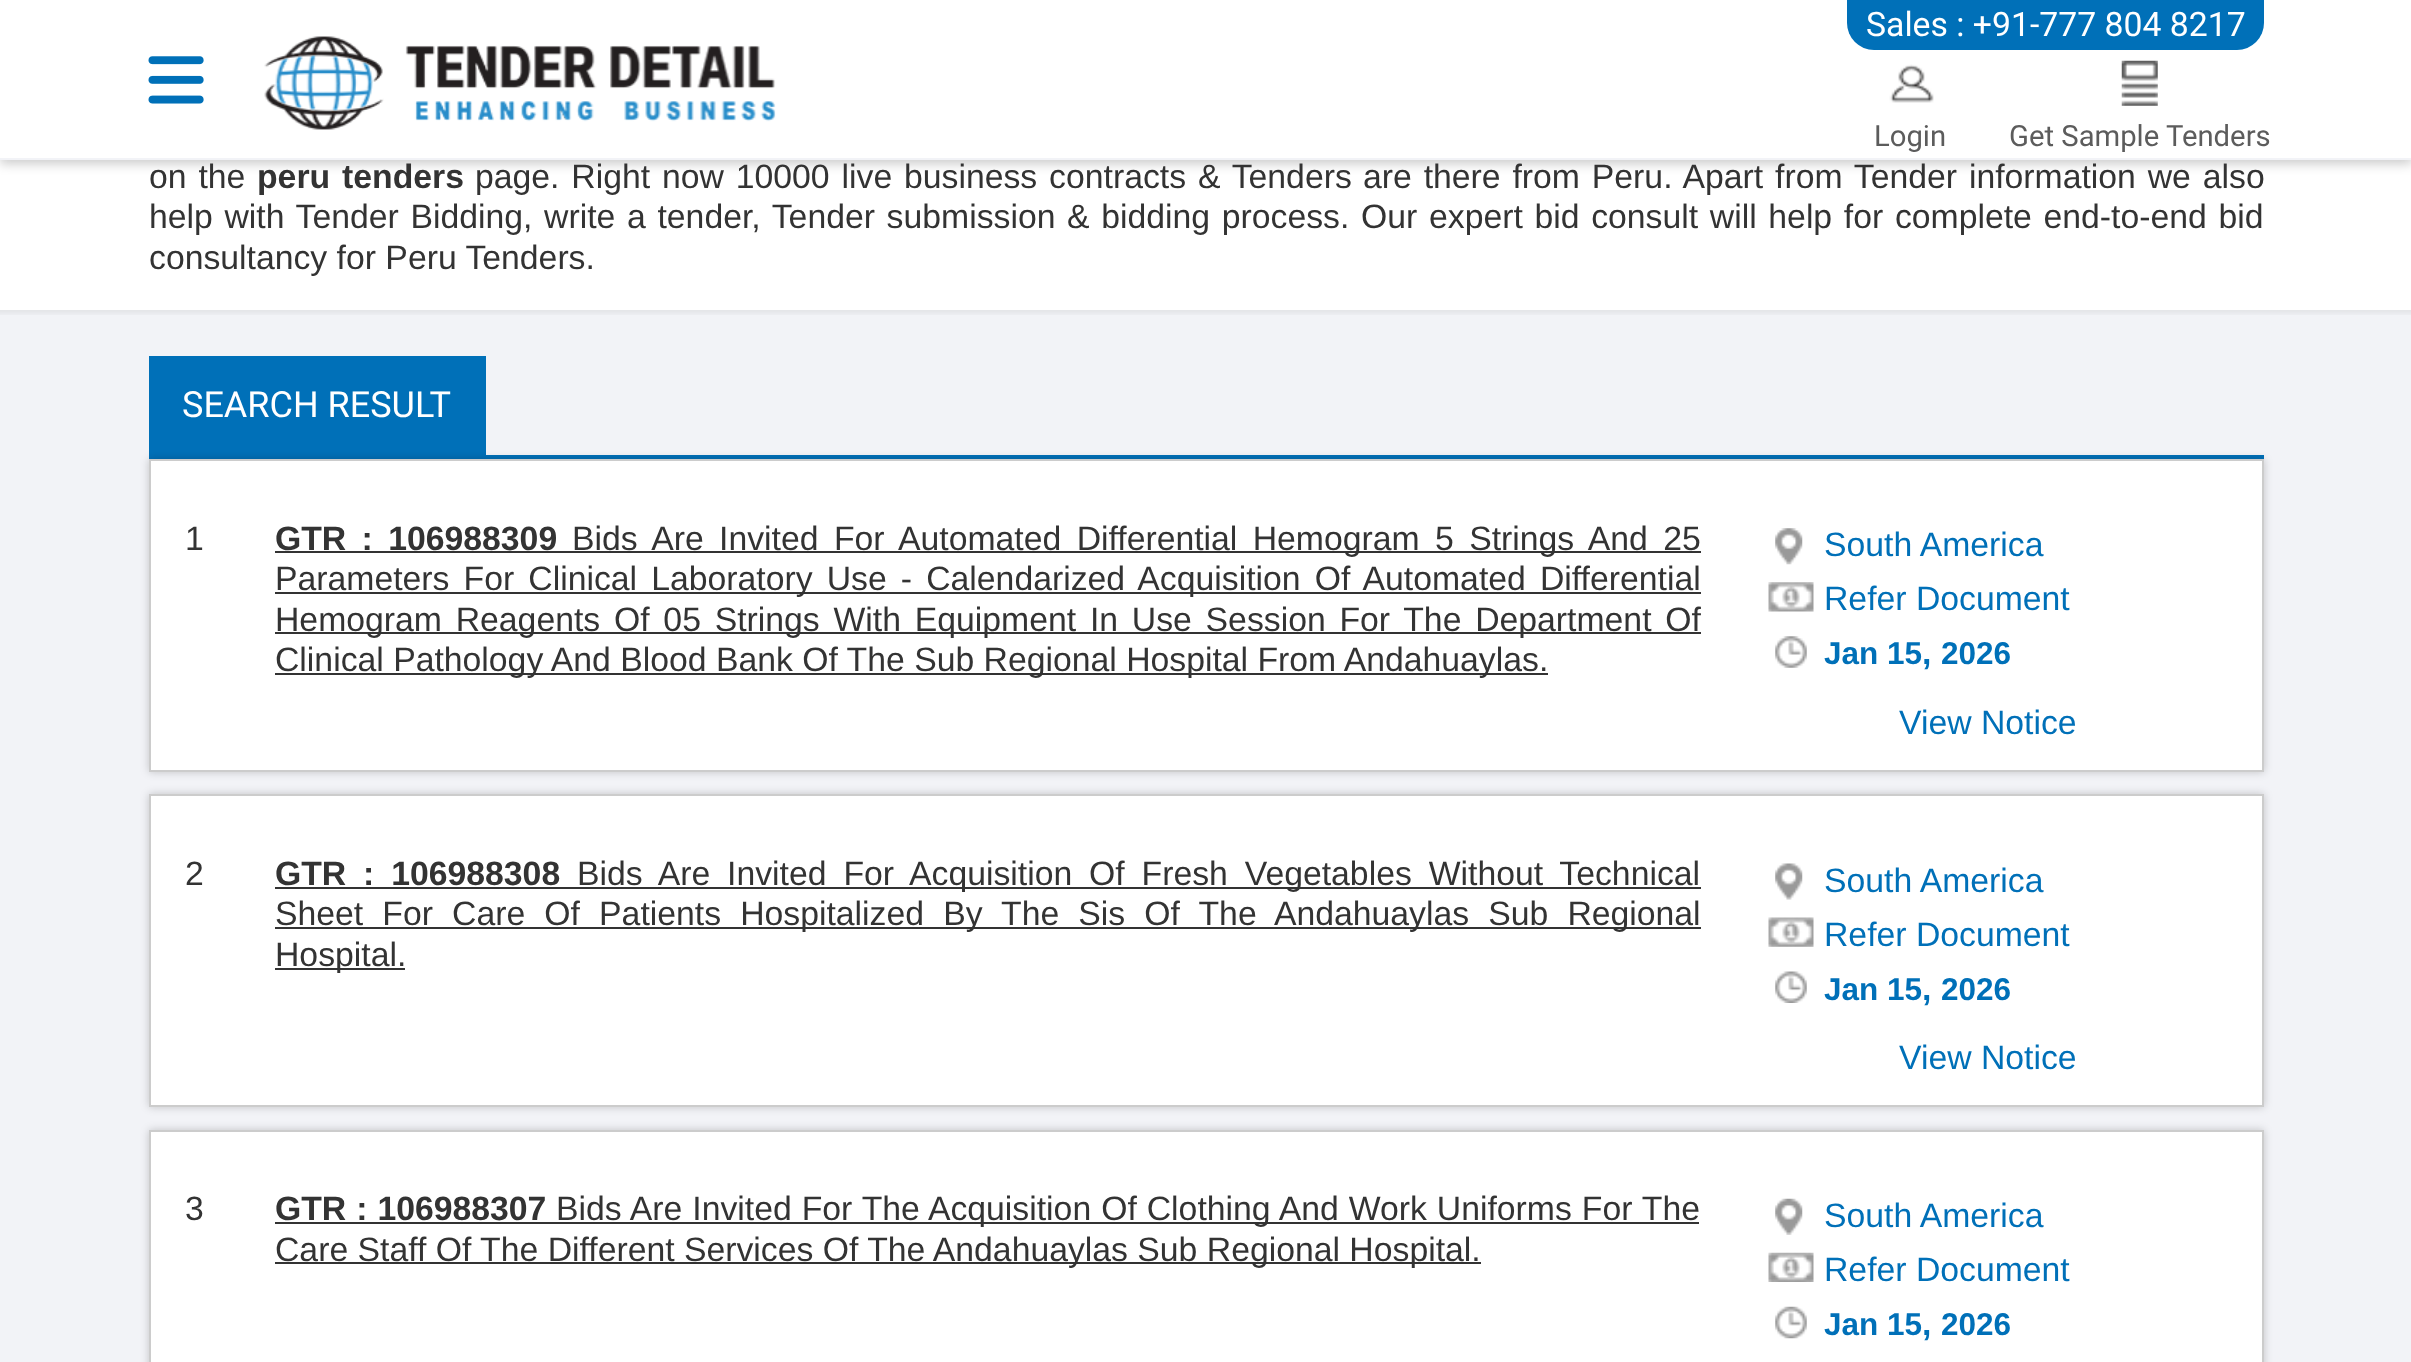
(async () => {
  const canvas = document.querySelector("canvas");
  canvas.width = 2411;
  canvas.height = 1362;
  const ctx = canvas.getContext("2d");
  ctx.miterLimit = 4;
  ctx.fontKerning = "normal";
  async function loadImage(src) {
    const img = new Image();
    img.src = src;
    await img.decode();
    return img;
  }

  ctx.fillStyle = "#ffffff";
  ctx.fillRect(0, 0, 2411, 1362);
  ctx.fillStyle = "rgba(0, 0, 0, 0.2)";
  ctx.filter = "blur(5.5px)";
  ctx.beginPath();
  ctx.rect(0, 5, 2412, 159);
  ctx.fill();
  ctx.filter = "none";
  ctx.fillStyle = "#ffffff";
  ctx.fillRect(0, 0, 2411, 158);
  ctx.fillStyle = "#f2f3f7";
  ctx.fillRect(0, 158, 2411, 2);
  ctx.fillStyle = "#0070b8";
  ctx.beginPath();
  ctx.roundRect(1847, 0, 417, 50, [0, 0, 27, 27]);
  ctx.fill();
  ctx.drawImage(await loadImage("img/1.png"), 148, 56, 56, 48);
  ctx.drawImage(await loadImage("img/2.png"), 264, 36, 512, 94);
  ctx.drawImage(await loadImage("img/3.png"), 1889, 64, 45, 39);
  ctx.drawImage(await loadImage("img/4.png"), 2121, 60, 37, 46);
  ctx.fillStyle = "#f2f3f7";
  ctx.fillRect(0, 315, 2411, 1047);
  ctx.drawImage(await loadImage("img/5.png"), 0, 310, 2411, 5);
  ctx.fillStyle = "#0070b8";
  ctx.fillRect(149, 455, 2115, 4);
  ctx.fillRect(149, 356, 337, 99);
  ctx.fillStyle = "rgba(0, 0, 0, 0.2)";
  ctx.filter = "blur(4.5px)";
  ctx.beginPath();
  ctx.rect(149, 459, 2115, 313);
  ctx.fill();
  ctx.filter = "none";
  ctx.fillStyle = "#ffffff";
  ctx.beginPath();
  ctx.rect(150, 460, 2113, 311);
  ctx.fill();
  ctx.strokeStyle = "#cccccc";
  ctx.lineWidth = 2;
  ctx.stroke();
  for (const [x, y, w, h, color] of [
    [275, 551, 1426, 2, "#333333"],
    [275, 592, 1426, 2, "#333333"],
    [275, 632, 1426, 2, "#333333"],
    [275, 673, 1273, 2, "#333333"],
  ]) {
    ctx.fillStyle = color;
    ctx.fillRect(x, y, w, h);
  }
  ctx.drawImage(await loadImage("img/6.png"), 1775, 528, 28, 37);
  ctx.drawImage(await loadImage("img/7.png"), 1768, 582, 46, 30);
  ctx.drawImage(await loadImage("img/8.png"), 1775, 636, 32, 32);
  ctx.fillStyle = "rgba(0, 0, 0, 0.2)";
  ctx.filter = "blur(4.5px)";
  ctx.beginPath();
  ctx.rect(149, 794, 2115, 313);
  ctx.fill();
  ctx.filter = "none";
  ctx.fillStyle = "#ffffff";
  ctx.beginPath();
  ctx.rect(150, 795, 2113, 311);
  ctx.fill();
  ctx.stroke();
  for (const [x, y, w, h, color] of [
    [275, 887, 1426, 2, "#333333"],
    [275, 927, 1426, 2, "#333333"],
    [275, 968, 130, 2, "#333333"],
  ]) {
    ctx.fillStyle = color;
    ctx.fillRect(x, y, w, h);
  }
  ctx.drawImage(await loadImage("img/9.png"), 1775, 863, 28, 37);
  ctx.drawImage(await loadImage("img/10.png"), 1768, 917, 46, 30);
  ctx.drawImage(await loadImage("img/11.png"), 1775, 971, 32, 32);
  ctx.fillStyle = "rgba(0, 0, 0, 0.2)";
  ctx.filter = "blur(4.5px)";
  ctx.beginPath();
  ctx.rect(149, 1130, 2115, 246);
  ctx.fill();
  ctx.filter = "none";
  ctx.fillStyle = "#ffffff";
  ctx.beginPath();
  ctx.rect(150, 1131, 2113, 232);
  ctx.fill();
  ctx.stroke();
  ctx.fillStyle = "#333333";
  ctx.fillRect(275, 1222, 1424, 2);
  ctx.fillRect(275, 1262, 1206, 2);
  ctx.drawImage(await loadImage("img/12.png"), 1775, 1198, 28, 37);
  ctx.drawImage(await loadImage("img/13.png"), 1768, 1252, 46, 30);
  ctx.drawImage(await loadImage("img/14.png"), 1775, 1306, 32, 33);
  ctx.font = "33.75px Roboto";
  ctx.fillStyle = "#ffffff";
  ctx.fillText("Sales : +91-777 804 8217", 1866, 36);
  ctx.font = "29.25px Roboto";
  ctx.fillStyle = "#5c5c5c";
  ctx.fillText("Login", 1874, 146);
  ctx.fillText("Get Sample Tenders", 2009, 146);
  ctx.wordSpacing = "2.5px";
  ctx.font = "33.75px Liberation Sans";
  ctx.fillStyle = "#333333";
  ctx.fillText("on the", 149, 188);
  ctx.font = "bold 33.75px Liberation Sans";
  ctx.fillText("peru tenders", 257, 188);
  ctx.font = "33.75px Liberation Sans";
  ctx.fillText("page. Right now 10000 live business contracts & Tenders", 475, 188);
  ctx.fillText("are there from Peru. Apart from Tender information we also", 1363, 188);
  ctx.wordSpacing = "2.3px";
  ctx.fillText("help with Tender Bidding, write a tender, Tender submission & bidding process. Our expert bid consult will help for complete end-to-end bid", 149, 228);
  ctx.wordSpacing = "0px";
  ctx.fillText("consultancy for Peru Tenders.", 149, 269);
  ctx.font = "36px Roboto";
  ctx.fillStyle = "#ffffff";
  ctx.fillText("SEARCH RESULT", 182, 417);
  ctx.font = "33.75px Liberation Sans";
  ctx.fillStyle = "#333333";
  ctx.fillText("1", 185, 550);
  ctx.wordSpacing = "6px";
  ctx.font = "bold 33.75px Liberation Sans";
  ctx.fillText("GTR : 106988309", 275, 550);
  ctx.font = "33.75px Liberation Sans";
  ctx.fillText("Bids Are Invited For Automated Differential Hemogram 5 Strings And 25", 572, 550);
  ctx.wordSpacing = "4.75px";
  ctx.fillText("Parameters For Clinical Laboratory Use - Calendarized Acquisition Of Automated Differential", 275, 590);
  ctx.wordSpacing = "4.4px";
  ctx.fillText("Hemogram Reagents Of 05 Strings With Equipment In Use Session For The Department Of", 275, 631);
  ctx.wordSpacing = "0px";
  ctx.fillText("Clinical Pathology And Blood Bank Of The Sub Regional Hospital From Andahuaylas.", 275, 671);
  ctx.fillStyle = "#0070b8";
  ctx.fillText("South America", 1824, 556);
  ctx.fillText("Refer Document", 1824, 610);
  ctx.font = "bold 31.5px Liberation Sans";
  ctx.fillText("Jan", 1824, 664);
  ctx.fillText("15", 1887, 664);
  ctx.font = "bold 33.75px Liberation Sans";
  ctx.fillText(",", 1922, 664);
  ctx.font = "bold 31.5px Liberation Sans";
  ctx.fillText("2026", 1941, 664);
  ctx.font = "33.75px Liberation Sans";
  ctx.fillText("View Notice", 1899, 734);
  ctx.fillStyle = "#333333";
  ctx.fillText("2", 185, 885);
  ctx.wordSpacing = "7.5px";
  ctx.font = "bold 33.75px Liberation Sans";
  ctx.fillText("GTR : 106988308", 275, 885);
  ctx.font = "33.75px Liberation Sans";
  ctx.fillText("Bids Are Invited For Acquisition Of Fresh Vegetables Without Technical", 577, 885);
  ctx.wordSpacing = "9.75px";
  ctx.fillText("Sheet For Care Of Patients Hospitalized By The Sis Of The Andahuaylas Sub Regional", 275, 925);
  ctx.wordSpacing = "0px";
  ctx.fillText("Hospital.", 275, 966);
  ctx.fillStyle = "#0070b8";
  ctx.fillText("South America", 1824, 892);
  ctx.fillText("Refer Document", 1824, 946);
  ctx.font = "bold 31.5px Liberation Sans";
  ctx.fillText("Jan", 1824, 1000);
  ctx.fillText("15", 1887, 1000);
  ctx.font = "bold 33.75px Liberation Sans";
  ctx.fillText(",", 1922, 1000);
  ctx.font = "bold 31.5px Liberation Sans";
  ctx.fillText("2026", 1941, 1000);
  ctx.font = "33.75px Liberation Sans";
  ctx.fillText("View Notice", 1899, 1069);
  ctx.fillStyle = "#333333";
  ctx.fillText("3", 185, 1220);
  ctx.wordSpacing = "0.6px";
  ctx.font = "bold 33.75px Liberation Sans";
  ctx.fillText("GTR : 106988307", 275, 1220);
  ctx.font = "33.75px Liberation Sans";
  ctx.fillText("Bids Are Invited For The Acquisition Of Clothing And Work Uniforms For The", 556, 1220);
  ctx.wordSpacing = "0px";
  ctx.fillText("Care Staff Of The Different Services Of The Andahuaylas Sub Regional Hospital.", 275, 1261);
  ctx.fillStyle = "#0070b8";
  ctx.fillText("South America", 1824, 1227);
  ctx.fillText("Refer Document", 1824, 1281);
  ctx.font = "bold 31.5px Liberation Sans";
  ctx.fillText("Jan", 1824, 1335);
  ctx.fillText("15", 1887, 1335);
  ctx.font = "bold 33.75px Liberation Sans";
  ctx.fillText(",", 1922, 1335);
  ctx.font = "bold 31.5px Liberation Sans";
  ctx.fillText("2026", 1941, 1335);
})();
